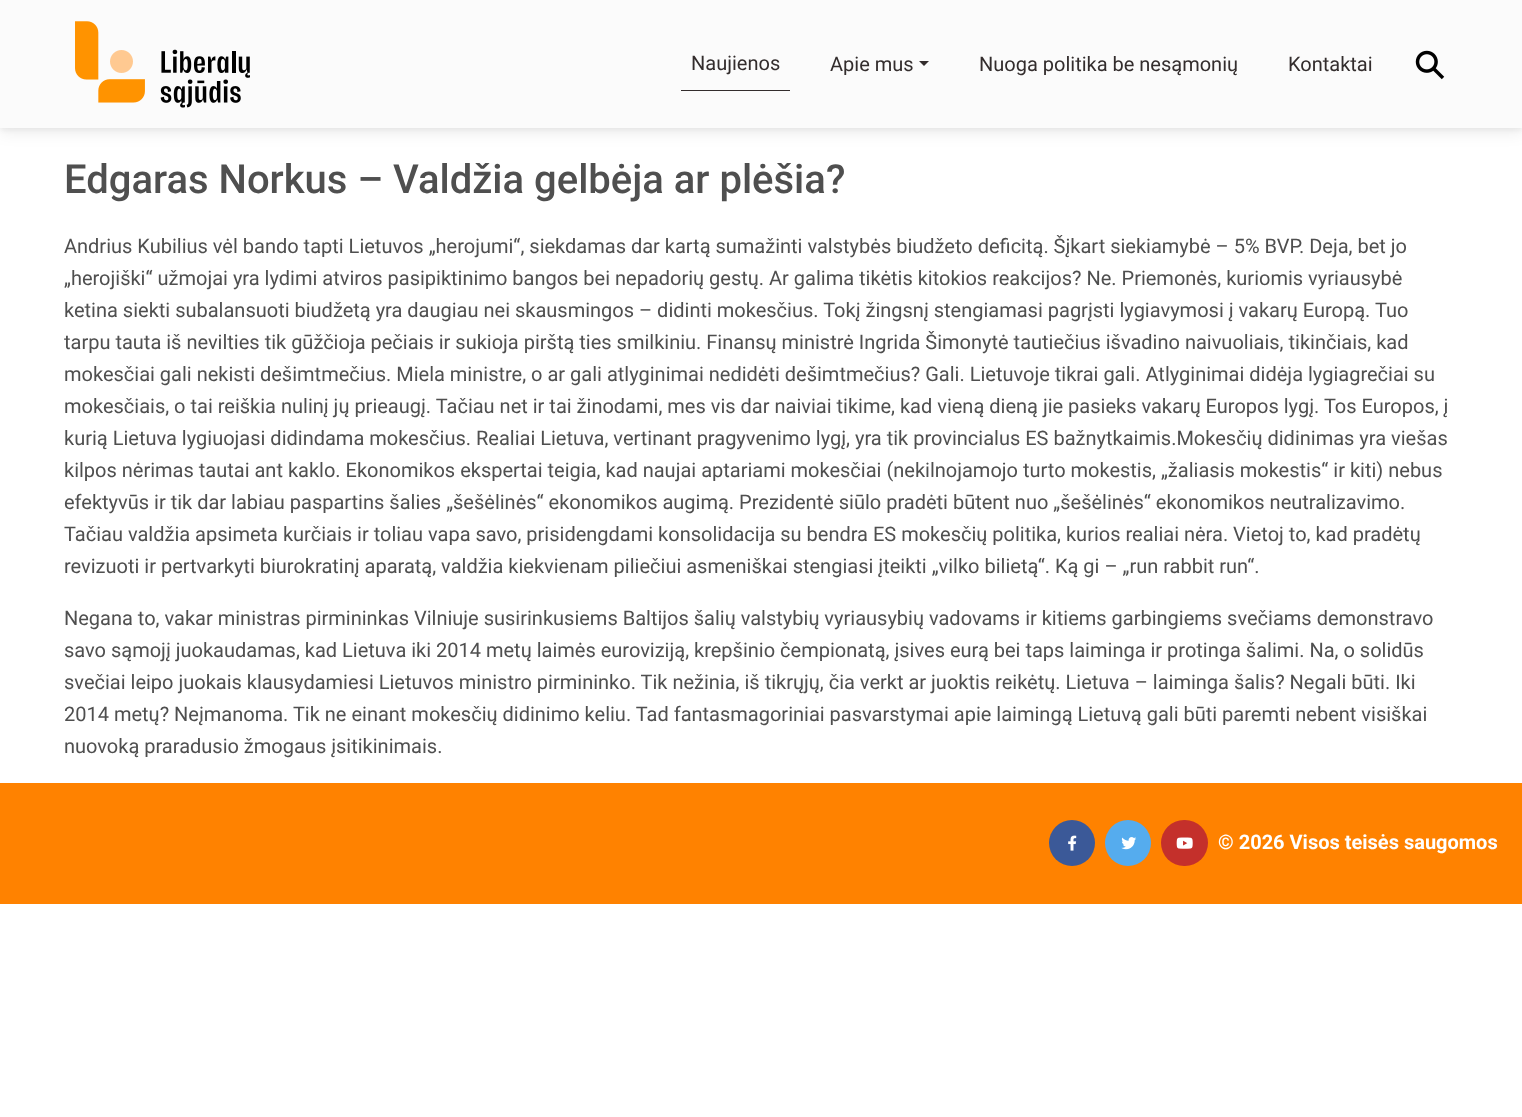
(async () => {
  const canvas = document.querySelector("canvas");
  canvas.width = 1522;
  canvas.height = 1117;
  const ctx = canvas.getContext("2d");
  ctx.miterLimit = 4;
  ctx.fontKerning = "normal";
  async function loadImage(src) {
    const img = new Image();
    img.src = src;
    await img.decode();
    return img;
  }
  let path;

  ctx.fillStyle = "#ffffff";
  ctx.fillRect(0, 0, 1522, 1117);
  ctx.fillStyle = "rgba(0, 0, 0, 0.05)";
  ctx.filter = "blur(2.5px)";
  ctx.beginPath();
  ctx.rect(0, 3, 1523, 127);
  ctx.fill();
  ctx.filter = "none";
  ctx.fillStyle = "rgba(0, 0, 0, 0.07)";
  ctx.filter = "blur(7.5px)";
  ctx.beginPath();
  ctx.rect(0, 5, 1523, 128);
  ctx.fill();
  ctx.filter = "none";
  ctx.fillStyle = "#fbfbfb";
  ctx.fillRect(0, 0, 1522, 128);
  ctx.drawImage(await loadImage("img/1.png"), 75, 21, 175, 87);
  ctx.fillStyle = "#332d2d";
  ctx.fillRect(681, 90, 109, 1);
  path = new Path2D("M919 61H929L924 66Z");
  ctx.fill(path);
  ctx.drawImage(await loadImage("img/2.png"), 1415, 50, 30, 30);
  ctx.fillStyle = "#ff8200";
  ctx.fillRect(0, 783, 1522, 121);
  ctx.fillStyle = "#3b5998";
  ctx.beginPath();
  ctx.arc(1072, 843, 23, 0, Math.PI * 2);
  ctx.fill();
  ctx.drawImage(await loadImage("img/3.png"), 1068, 835, 9, 16);
  ctx.fillStyle = "#55acee";
  ctx.beginPath();
  ctx.arc(1128, 843, 23, 0, Math.PI * 2);
  ctx.fill();
  ctx.drawImage(await loadImage("img/4.png"), 1121, 837, 16, 13);
  ctx.fillStyle = "#c4302b";
  ctx.beginPath();
  ctx.roundRect(1161, 820, 47, 46, 23);
  ctx.fill();
  ctx.drawImage(await loadImage("img/5.png"), 1176, 837, 17, 12);
  ctx.font = "20px Roboto";
  ctx.fillStyle = "#332d2d";
  for (const [text, x, y] of [
    ["Naujienos", 691, 70],
    ["Apie mus", 830, 71],
    ["Nuoga politika be nesąmonių", 979, 71],
    ["Kontaktai", 1288, 71],
  ]) {
    ctx.fillText(text, x, y);
  }
  ctx.font = "500 40px Roboto";
  ctx.fillStyle = "#4f4f4f";
  ctx.fillText("Edgaras Norkus – Valdžia gelbėja ar plėšia?", 64, 193);
  ctx.font = "20px Roboto";
  for (const [text, x, y] of [
    ["Andrius Kubilius vėl bando tapti Lietuvos „herojumi“, siekdamas dar kartą sumažinti valstybės biudžeto deficitą. Šįkart siekiamybė – 5% BVP. Deja, bet jo", 64, 253],
    ["„herojiški“ užmojai yra lydimi atviros pasipiktinimo bangos bei nepadorių gestų. Ar galima tikėtis kitokios reakcijos? Ne. Priemonės, kuriomis vyriausybė", 64, 285],
    ["ketina siekti subalansuoti biudžetą yra daugiau nei skausmingos – didinti mokesčius. Tokį žingsnį stengiamasi pagrįsti lygiavymosi į vakarų Europą. Tuo", 64, 317],
    ["tarpu tauta iš nevilties tik gūžčioja pečiais ir sukioja pirštą ties smilkiniu. Finansų ministrė Ingrida Šimonytė tautiečius išvadino naivuoliais, tikinčiais, kad", 64, 349],
    ["mokesčiai gali nekisti dešimtmečius. Miela ministre, o ar gali atlyginimai nedidėti dešimtmečius? Gali. Lietuvoje tikrai gali. Atlyginimai didėja lygiagrečiai su", 64, 381],
    ["mokesčiais, o tai reiškia nulinį jų prieaugį. Tačiau net ir tai žinodami, mes vis dar naiviai tikime, kad vieną dieną jie pasieks vakarų Europos lygį. Tos Europos, į", 64, 413],
    ["kurią Lietuva lygiuojasi didindama mokesčius. Realiai Lietuva, vertinant pragyvenimo lygį, yra tik provincialus ES bažnytkaimis.Mokesčių didinimas yra viešas", 64, 445],
    ["kilpos nėrimas tautai ant kaklo. Ekonomikos ekspertai teigia, kad naujai aptariami mokesčiai (nekilnojamojo turto mokestis, „žaliasis mokestis“ ir kiti) nebus", 64, 477],
    ["efektyvūs ir tik dar labiau paspartins šalies „šešėlinės“ ekonomikos augimą. Prezidentė siūlo pradėti būtent nuo „šešėlinės“ ekonomikos neutralizavimo.", 64, 509],
    ["Tačiau valdžia apsimeta kurčiais ir toliau vapa savo, prisidengdami konsolidacija su bendra ES mokesčių politika, kurios realiai nėra. Vietoj to, kad pradėtų", 64, 541],
    ["revizuoti ir pertvarkyti biurokratinį aparatą, valdžia kiekvienam piliečiui asmeniškai stengiasi įteikti „vilko bilietą“. Ką gi – „run rabbit run“.", 64, 573],
    ["Negana to, vakar ministras pirmininkas Vilniuje susirinkusiems Baltijos šalių valstybių vyriausybių vadovams ir kitiems garbingiems svečiams demonstravo", 64, 625],
    ["savo sąmojį juokaudamas, kad Lietuva iki 2014 metų laimės euroviziją, krepšinio čempionatą, įsives eurą bei taps laiminga ir protinga šalimi. Na, o solidūs", 64, 657],
    ["svečiai leipo juokais klausydamiesi Lietuvos ministro pirmininko. Tik nežinia, iš tikrųjų, čia verkt ar juoktis reikėtų. Lietuva – laiminga šalis? Negali būti. Iki", 64, 689],
    ["2014 metų? Neįmanoma. Tik ne einant mokesčių didinimo keliu. Tad fantasmagoriniai pasvarstymai apie laimingą Lietuvą gali būti paremti nebent visiškai", 64, 721],
    ["nuovoką praradusio žmogaus įsitikinimais.", 64, 753],
  ]) {
    ctx.fillText(text, x, y);
  }
  ctx.font = "bold 20px Roboto";
  ctx.fillStyle = "#ffffff";
  ctx.fillText("© 2026 Visos teisės saugomos", 1218, 849);
})();
